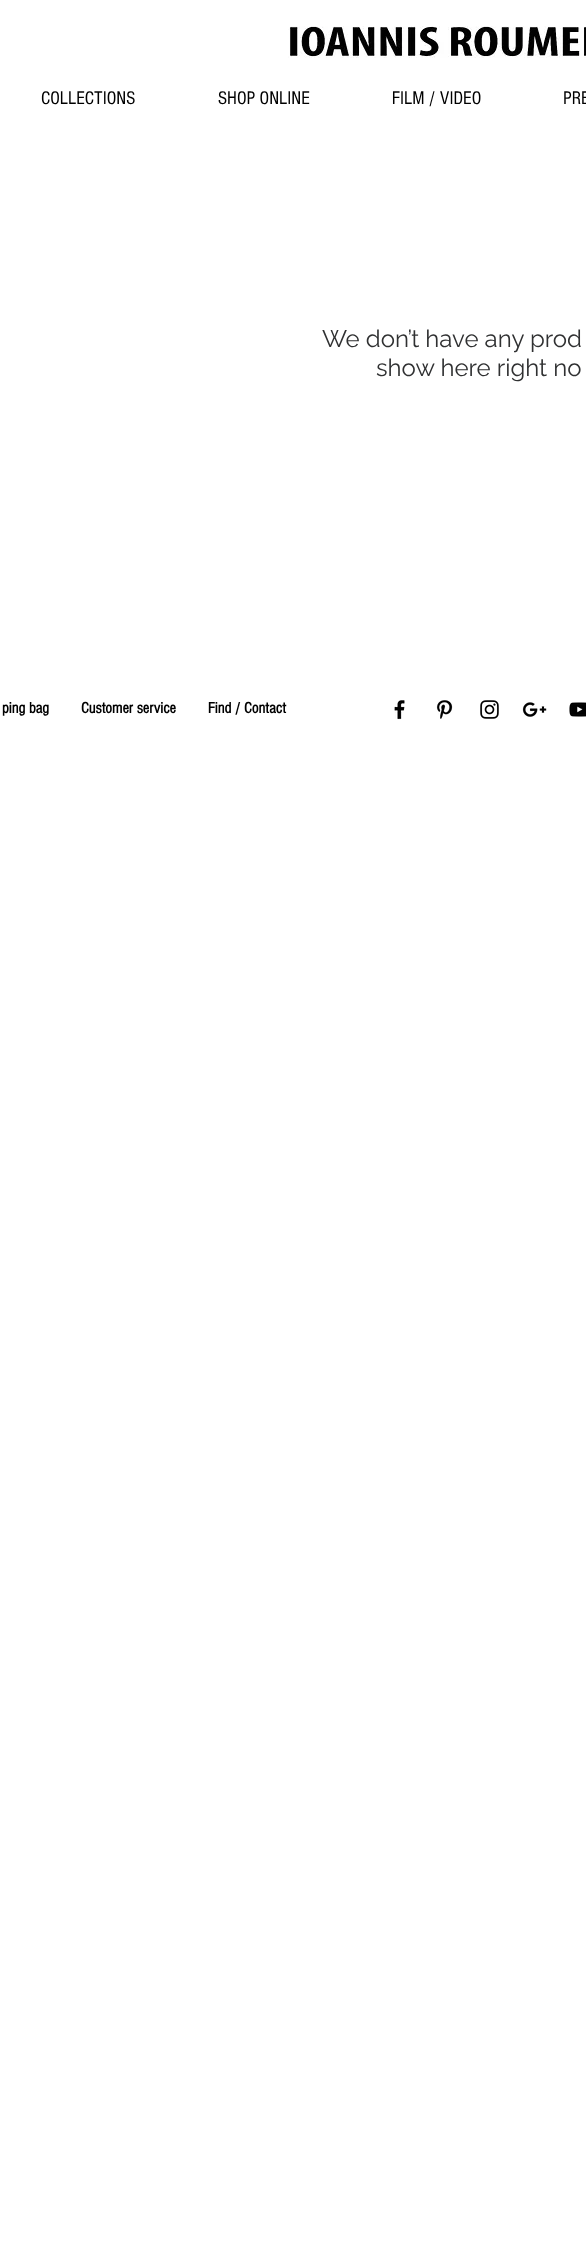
(async () => {
  const canvas = document.querySelector("canvas");
  canvas.width = 586;
  canvas.height = 2255;
  const ctx = canvas.getContext("2d");
  ctx.miterLimit = 4;
  ctx.fontKerning = "normal";
  async function loadImage(src) {
    const img = new Image();
    img.src = src;
    await img.decode();
    return img;
  }

  ctx.fillStyle = "#ffffff";
  ctx.fillRect(0, 0, 586, 2255);
  ctx.drawImage(await loadImage("img/1.png"), 288, 26, 298, 32);
  ctx.drawImage(await loadImage("img/2.png"), 394, 700, 11, 20);
  ctx.drawImage(await loadImage("img/3.png"), 436, 700, 17, 19);
  ctx.drawImage(await loadImage("img/4.png"), 480, 700, 19, 19);
  ctx.drawImage(await loadImage("img/5.png"), 522, 702, 25, 15);
  ctx.drawImage(await loadImage("img/6.png"), 569, 702, 17, 15);
  ctx.font = "19px 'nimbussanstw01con'";
  ctx.fillStyle = "#000000";
  for (const [text, x, y] of [
    ["COLLECTIONS", 41, 104],
    ["SHOP ONLINE", 218, 104],
    ["FILM / VIDEO", 392, 104],
    ["PRE", 563, 104],
  ]) {
    ctx.fillText(text, x, y);
  }
  ctx.font = "24px Raleway";
  ctx.fillStyle = "#303132";
  ctx.fillText("We don’t have any prod", 322, 347);
  ctx.fillText("show here right no", 376, 376);
  ctx.font = "bold 16px 'nimbussanstw01con'";
  ctx.fillStyle = "#000000";
  for (const [text, x, y] of [
    ["ping bag", 2, 713],
    ["Customer service", 81, 713],
    ["Find / Contact", 208, 713],
  ]) {
    ctx.fillText(text, x, y);
  }
})();
